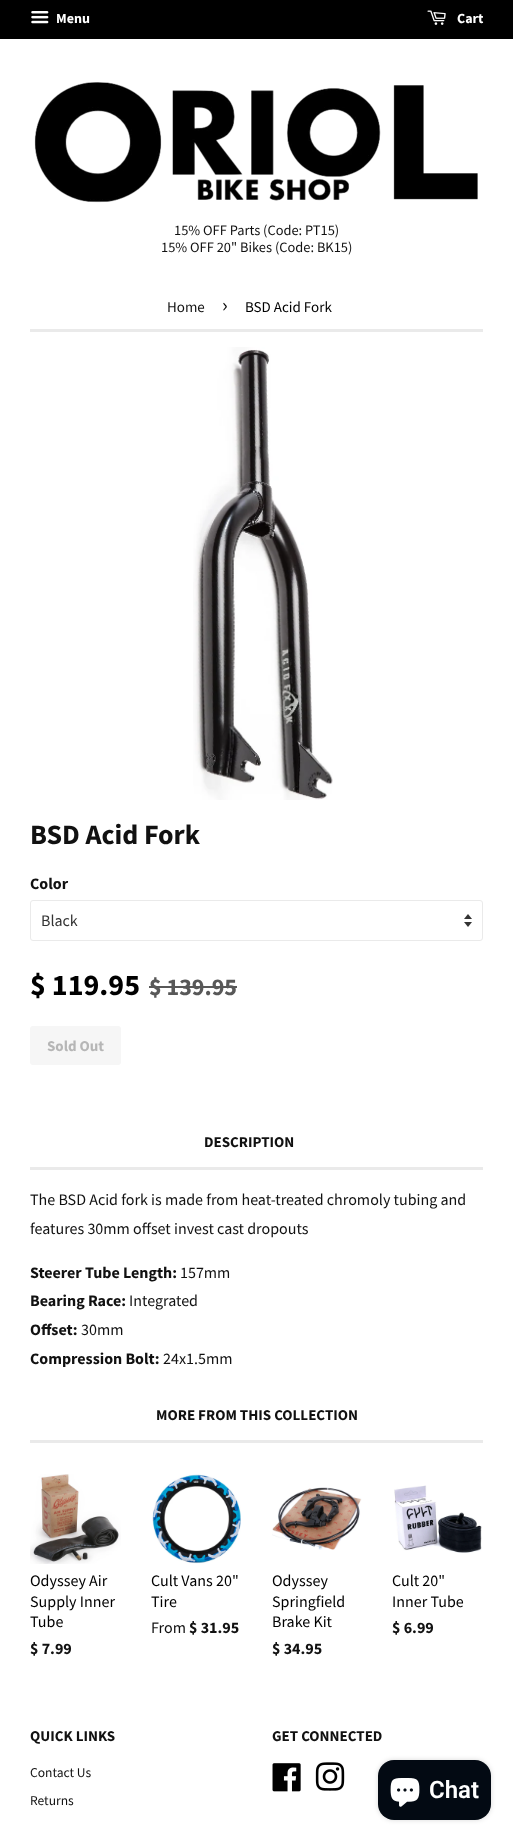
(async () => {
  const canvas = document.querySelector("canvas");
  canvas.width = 513;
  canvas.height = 1841;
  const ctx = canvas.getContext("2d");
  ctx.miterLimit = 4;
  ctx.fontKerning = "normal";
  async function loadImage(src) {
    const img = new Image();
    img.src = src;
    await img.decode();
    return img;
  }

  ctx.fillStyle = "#ffffff";
  ctx.fillRect(0, 0, 513, 1841);
  ctx.fillStyle = "#000000";
  ctx.fillRect(0, 0, 513, 39);
  ctx.drawImage(await loadImage("img/1.png"), 31, 11, 18, 13);
  ctx.drawImage(await loadImage("img/2.png"), 427, 10, 19, 15);
  ctx.drawImage(await loadImage("img/3.png"), 34, 82, 444, 121);
  ctx.fillStyle = "#eaeaea";
  ctx.fillRect(30, 329, 453, 3);
  ctx.drawImage(await loadImage("img/4.png"), 193, 347, 140, 453);
  ctx.drawImage(await loadImage("img/5.png"), 464, 914, 8, 13);
  ctx.beginPath();
  ctx.roundRect(30.5, 900.5, 452, 40, 2.5);
  ctx.strokeStyle = "#eaeaea";
  ctx.stroke();
  ctx.fillStyle = "#585858";
  ctx.fillRect(149, 986, 88, 2);
  ctx.fillStyle = "#f6f6f6";
  ctx.beginPath();
  ctx.roundRect(30, 1026, 91, 39, 3);
  ctx.fill();
  ctx.fillStyle = "#eaeaea";
  ctx.fillRect(30, 1167, 453, 3);
  ctx.fillRect(30, 1440, 453, 3);
  ctx.drawImage(await loadImage("img/6.png"), 30, 1474, 91, 90);
  ctx.drawImage(await loadImage("img/7.png"), 152, 1474, 89, 90);
  ctx.drawImage(await loadImage("img/8.png"), 272, 1487, 90, 63);
  ctx.drawImage(await loadImage("img/9.png"), 394, 1485, 88, 68);
  ctx.drawImage(await loadImage("img/10.png"), 272, 1763, 29, 29);
  ctx.drawImage(await loadImage("img/11.png"), 315, 1762, 30, 29);
  ctx.fillStyle = "rgba(0, 0, 0, 0.15)";
  ctx.filter = "blur(2.5px)";
  ctx.beginPath();
  ctx.roundRect(378, 1760, 113, 60, 16);
  ctx.fill();
  ctx.filter = "none";
  ctx.fillStyle = "#030a13";
  ctx.beginPath();
  ctx.roundRect(378, 1760, 113, 60, 16);
  ctx.fill();
  ctx.drawImage(await loadImage("img/12.png"), 390, 1778, 30, 29);
  ctx.font = "bold 14px Source Sans Pro";
  ctx.fillStyle = "#ffffff";
  ctx.fillText("Menu", 56, 23);
  ctx.fillText("Cart", 457, 23);
  ctx.font = "14.4px Source Sans Pro";
  ctx.fillStyle = "#111111";
  ctx.fillText("15% OFF Parts (Code: PT15)", 174, 235);
  ctx.fillText("15% OFF 20\" Bikes (Code: BK15)", 161, 252);
  ctx.font = "15px Source Sans Pro";
  ctx.fillText("Home", 167, 312);
  ctx.font = "21px Source Sans Pro";
  ctx.fillStyle = "#000000";
  ctx.fillText("›", 222, 312);
  ctx.font = "15px Source Sans Pro";
  ctx.fillText("BSD Acid Fork", 245, 312);
  ctx.font = "bold 28px Source Sans Pro";
  ctx.fillStyle = "#111111";
  ctx.fillText("BSD Acid Fork", 30, 844);
  ctx.font = "bold 16px Source Sans Pro";
  ctx.fillText("Color", 30, 889);
  ctx.font = "16px Source Sans Pro";
  ctx.fillStyle = "#333333";
  ctx.fillText("Black", 41, 926);
  ctx.font = "bold 30px Source Sans Pro";
  ctx.fillStyle = "#000000";
  ctx.fillText("$ 119.95", 30, 995);
  ctx.font = "bold 24px Source Sans Pro";
  ctx.fillStyle = "#585858";
  ctx.fillText("$ 139.95", 149, 995);
  ctx.font = "bold 15px Source Sans Pro";
  ctx.fillStyle = "#b6b6b6";
  ctx.fillText("Sold Out", 47, 1051);
  ctx.fillStyle = "#111111";
  ctx.fillText("DESCRIPTION", 204, 1147);
  ctx.font = "16px Source Sans Pro";
  ctx.fillText("The BSD Acid fork is made from heat-treated chromoly tubing and", 30, 1205);
  ctx.fillText("features 30mm offset invest cast dropouts", 30, 1234);
  ctx.font = "bold 16px Source Sans Pro";
  ctx.fillText("Steerer Tube Length:", 30, 1278);
  ctx.font = "16px Source Sans Pro";
  ctx.fillText("157mm", 180, 1278);
  ctx.font = "bold 16px Source Sans Pro";
  ctx.fillText("Bearing Race:", 30, 1306);
  ctx.font = "16px Source Sans Pro";
  ctx.fillText("Integrated", 129, 1306);
  ctx.font = "bold 16px Source Sans Pro";
  ctx.fillText("Offset:", 30, 1335);
  ctx.font = "16px Source Sans Pro";
  ctx.fillText("30mm", 81, 1335);
  ctx.font = "bold 16px Source Sans Pro";
  ctx.fillText("Compression Bolt:", 30, 1364);
  ctx.font = "16px Source Sans Pro";
  ctx.fillText("24x1.5mm", 163, 1364);
  ctx.font = "bold 15px Source Sans Pro";
  ctx.fillText("MORE FROM THIS COLLECTION", 156, 1420);
  ctx.font = "16px Source Sans Pro";
  ctx.fillStyle = "#000000";
  for (const [text, x, y] of [
    ["Odyssey Air", 30, 1586],
    ["Supply Inner", 30, 1607],
    ["Tube", 30, 1627],
  ]) {
    ctx.fillText(text, x, y);
  }
  ctx.font = "bold 16px Source Sans Pro";
  ctx.fillStyle = "#111111";
  ctx.fillText("$ 7.99", 30, 1654);
  ctx.font = "16px Source Sans Pro";
  ctx.fillStyle = "#000000";
  ctx.fillText("Cult Vans 20\"", 151, 1586);
  ctx.fillText("Tire", 151, 1607);
  ctx.fillStyle = "#111111";
  ctx.fillText("From", 151, 1633);
  ctx.font = "bold 16px Source Sans Pro";
  ctx.fillText("$ 31.95", 189, 1633);
  ctx.font = "16px Source Sans Pro";
  ctx.fillStyle = "#000000";
  for (const [text, x, y] of [
    ["Odyssey", 272, 1586],
    ["Springfield", 272, 1607],
    ["Brake Kit", 272, 1627],
  ]) {
    ctx.fillText(text, x, y);
  }
  ctx.font = "bold 16px Source Sans Pro";
  ctx.fillStyle = "#111111";
  ctx.fillText("$ 34.95", 272, 1654);
  ctx.font = "16px Source Sans Pro";
  ctx.fillStyle = "#000000";
  ctx.fillText("Cult 20\"", 392, 1586);
  ctx.fillText("Inner Tube", 392, 1607);
  ctx.font = "bold 16px Source Sans Pro";
  ctx.fillStyle = "#111111";
  ctx.fillText("$ 6.99", 392, 1633);
  ctx.font = "bold 15px Source Sans Pro";
  ctx.fillText("QUICK LINKS", 30, 1741);
  ctx.font = "13.5px Source Sans Pro";
  ctx.fillText("Contact Us", 30, 1777);
  ctx.fillText("Returns", 30, 1805);
  ctx.font = "bold 15px Source Sans Pro";
  ctx.fillText("GET CONNECTED", 272, 1741);
  ctx.font = "600 24px Roboto";
  ctx.fillStyle = "#ffffff";
  ctx.fillText("Chat", 429, 1798);
})();
